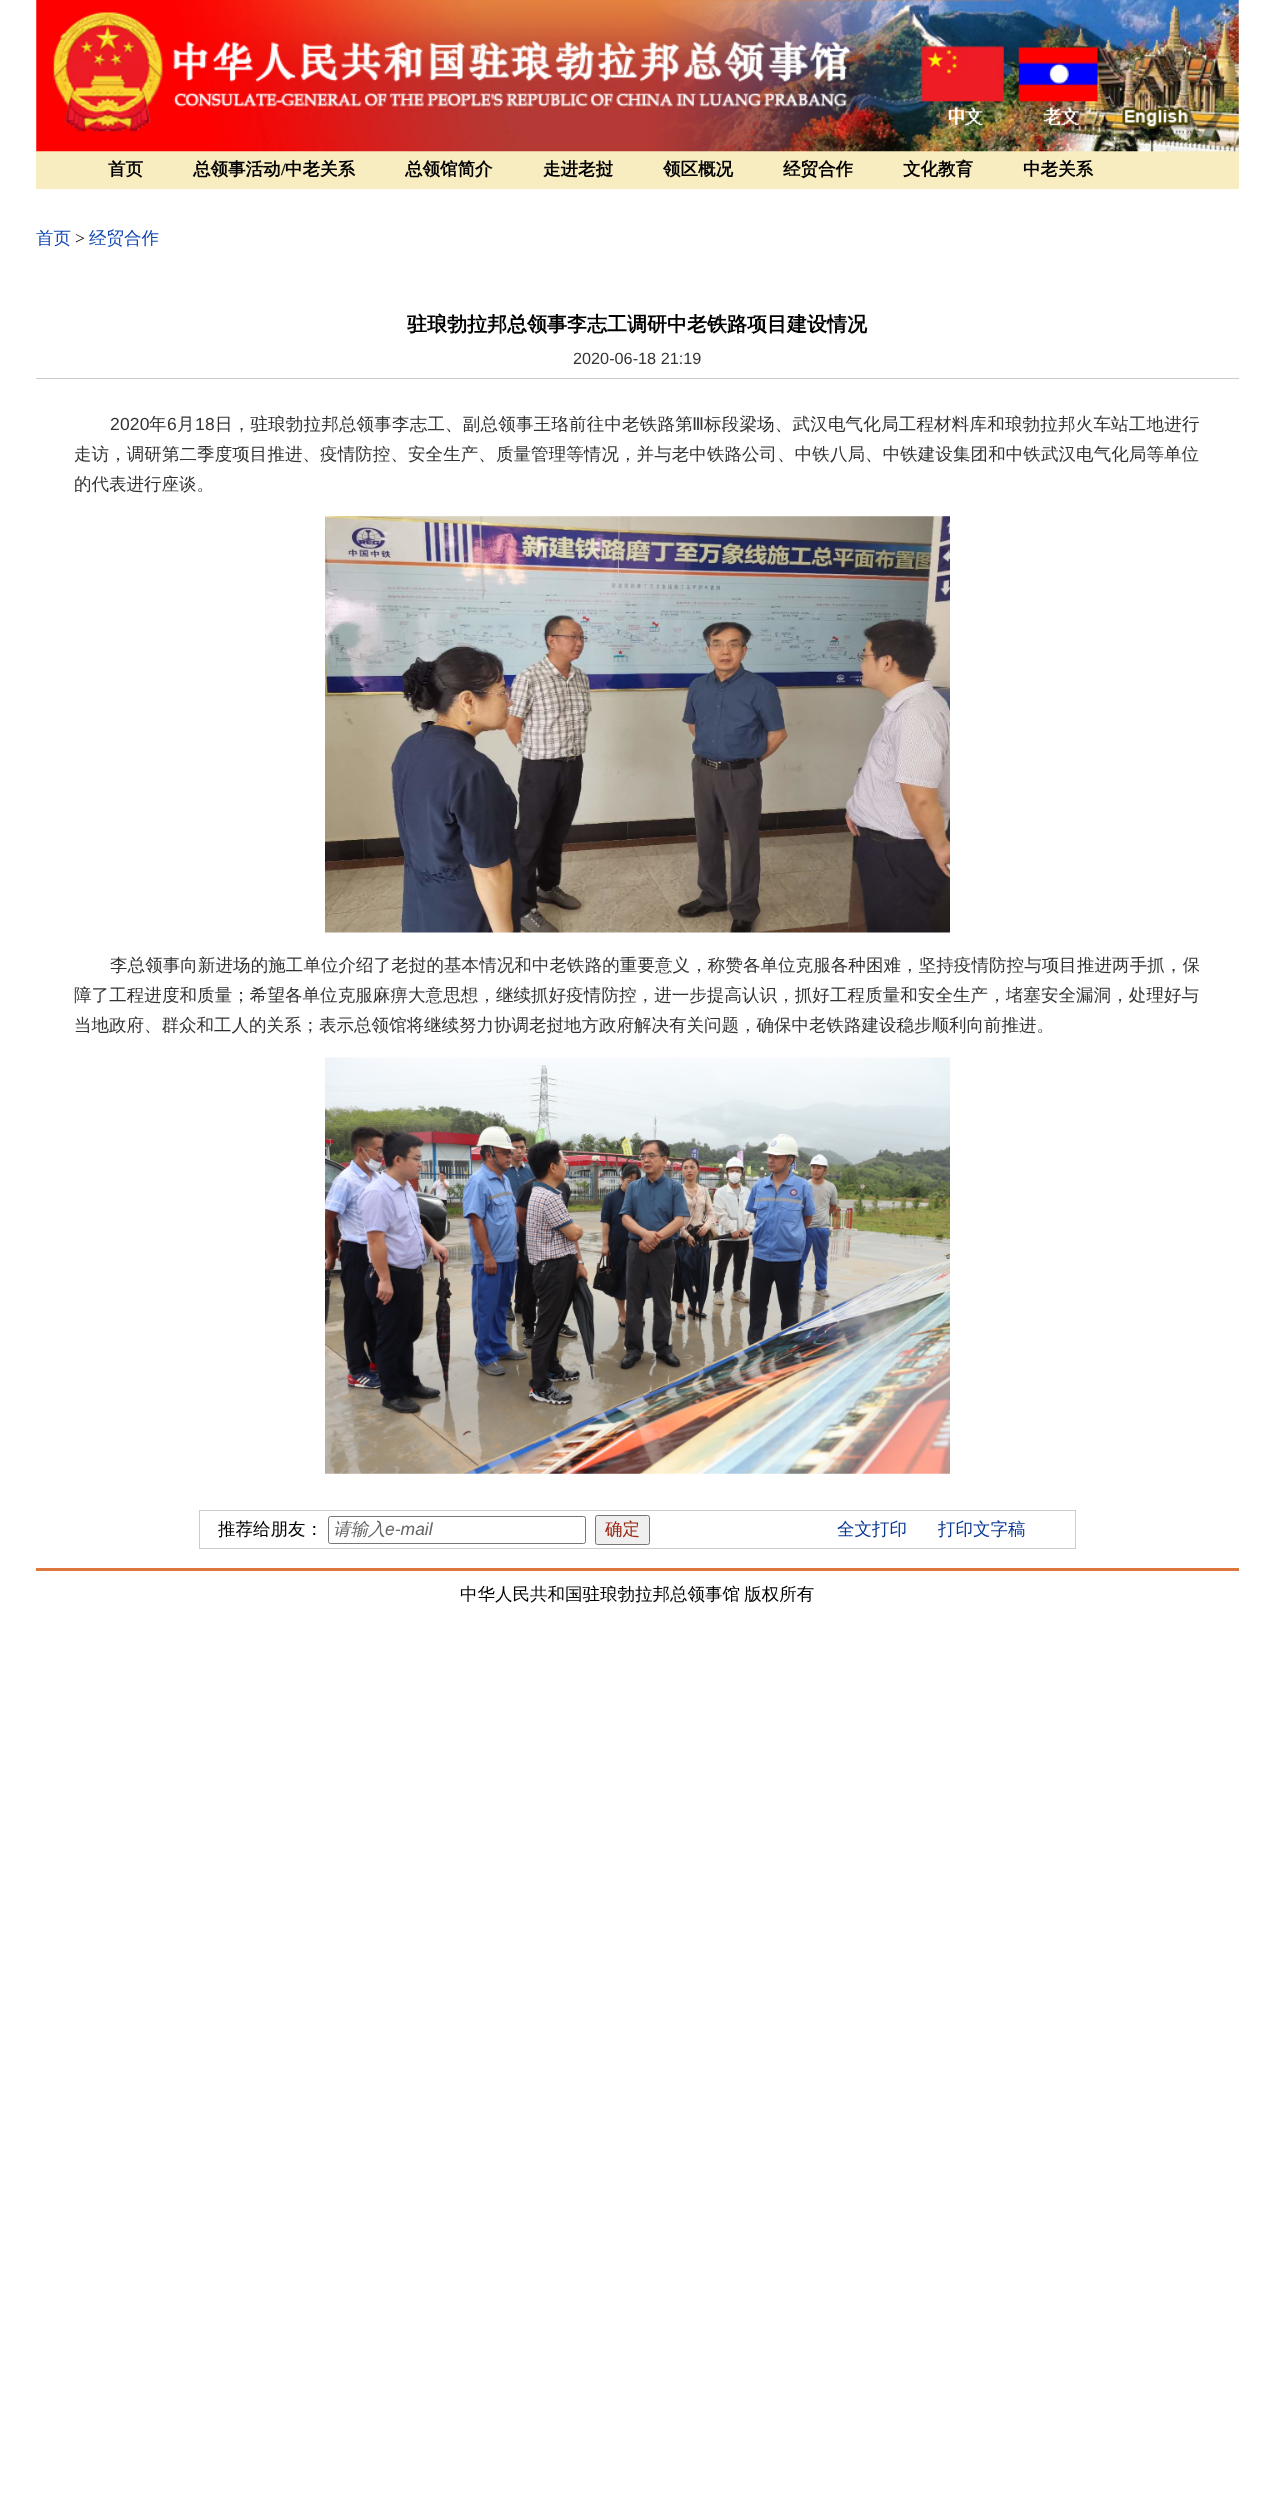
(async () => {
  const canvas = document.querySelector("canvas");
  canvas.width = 1273;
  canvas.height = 2493;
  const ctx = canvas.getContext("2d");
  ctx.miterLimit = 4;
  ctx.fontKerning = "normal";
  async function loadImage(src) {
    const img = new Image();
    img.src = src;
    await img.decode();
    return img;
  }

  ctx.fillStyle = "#ffffff";
  ctx.fillRect(0, 0, 1273, 2493);
  ctx.fillStyle = "#f8ecc1";
  ctx.fillRect(36, 151, 1203, 38);
  ctx.drawImage(await loadImage("img/1.png"), 36, 0, 1203, 152);
  ctx.fillStyle = "#cccccc";
  ctx.fillRect(36, 378, 1203, 1);
  ctx.drawImage(await loadImage("img/2.png"), 325, 516, 625, 417);
  ctx.drawImage(await loadImage("img/3.png"), 325, 1057, 625, 417);
  ctx.strokeStyle = "#cccccc";
  ctx.strokeRect(199.5, 1510.5, 876, 38);
  ctx.beginPath();
  ctx.roundRect(328.5, 1516.5, 257, 27, 2);
  ctx.strokeStyle = "#767676";
  ctx.stroke();
  ctx.fillStyle = "#efefef";
  ctx.beginPath();
  ctx.roundRect(595.5, 1515.5, 54, 29, 2);
  ctx.fill();
  ctx.stroke();
  ctx.fillStyle = "#dd773e";
  ctx.fillRect(36, 1568, 1203, 3);
  ctx.font = "bold 17.5px WenQuanYi Zen Hei";
  ctx.fillStyle = "#000000";
  ctx.fillText("首页", 108, 175);
  ctx.fillText("总领事活动", 193, 175);
  ctx.font = "bold 17.5px Liberation Serif";
  ctx.fillText("/", 281, 175);
  ctx.font = "bold 17.5px WenQuanYi Zen Hei";
  for (const [text, x, y] of [
    ["中老关系", 285, 175],
    ["总领馆简介", 405, 175],
    ["走进老挝", 543, 175],
    ["领区概况", 663, 175],
    ["经贸合作", 783, 175],
    ["文化教育", 903, 175],
    ["中老关系", 1023, 175],
  ]) {
    ctx.fillText(text, x, y);
  }
  ctx.font = "500 17.5px WenQuanYi Zen Hei";
  ctx.fillStyle = "#0f47b4";
  ctx.fillText("首页", 36, 244);
  ctx.font = "17.5px Liberation Serif";
  ctx.fillStyle = "#000000";
  ctx.fillText(">", 75, 244);
  ctx.font = "500 17.5px WenQuanYi Zen Hei";
  ctx.fillStyle = "#0f47b4";
  ctx.fillText("经贸合作", 89, 244);
  ctx.font = "bold 20px WenQuanYi Zen Hei";
  ctx.fillStyle = "#000000";
  ctx.fillText("驻琅勃拉邦总领事李志工调研中老铁路项目建设情况", 407, 331);
  ctx.font = "16.25px Liberation Sans";
  ctx.fillStyle = "#333333";
  ctx.fillText("2020-06-18 21:19", 573, 364);
  ctx.letterSpacing = "0.2px";
  ctx.font = "17.5px Liberation Sans";
  ctx.fillText("2020", 110, 430);
  ctx.font = "500 17.5px WenQuanYi Zen Hei";
  ctx.fillText("年", 149, 430);
  ctx.font = "17.5px Liberation Sans";
  ctx.fillText("6", 167, 430);
  ctx.font = "500 17.5px WenQuanYi Zen Hei";
  ctx.fillText("月", 177, 430);
  ctx.font = "17.5px Liberation Sans";
  ctx.fillText("18", 195, 430);
  ctx.font = "500 17.5px WenQuanYi Zen Hei";
  ctx.fillText("日，驻琅勃拉邦总领事李志工、副总领事王珞前往中老铁路第", 215, 430);
  ctx.font = "17.5px DejaVu Sans";
  ctx.fillText("Ⅲ", 692, 430);
  ctx.font = "500 17.5px WenQuanYi Zen Hei";
  ctx.fillText("标段梁场、武汉电气化局工程材料库和琅勃拉邦火车站工地进行", 704, 430);
  ctx.letterSpacing = "0.08px";
  ctx.fillText("走访，调研第二季度项目推进、疫情防控、安全生产、质量管理等情况，并与老中铁路公司、中铁八局、中铁建设集团和中铁武汉电气化局等单位", 74, 460);
  ctx.letterSpacing = "0px";
  ctx.fillText("的代表进行座谈。", 74, 490);
  ctx.letterSpacing = "0.08px";
  ctx.fillText("李总领事向新进场的施工单位介绍了老挝的基本情况和中老铁路的重要意义，称赞各单位克服各种困难，坚持疫情防控与项目推进两手抓，保", 110, 971);
  ctx.fillText("障了工程进度和质量；希望各单位克服麻痹大意思想，继续抓好疫情防控，进一步提高认识，抓好工程质量和安全生产，堵塞安全漏洞，处理好与", 74, 1001);
  ctx.letterSpacing = "0px";
  ctx.fillText("当地政府、群众和工人的关系；表示总领馆将继续努力协调老挝地方政府解决有关问题，确保中老铁路建设稳步顺利向前推进。", 74, 1031);
  ctx.fillStyle = "#000000";
  ctx.fillText("推荐给朋友：", 218, 1535);
  ctx.font = "italic 500 17.5px WenQuanYi Zen Hei";
  ctx.fillStyle = "#666666";
  ctx.fillText("请输入", 333, 1535);
  ctx.font = "italic 17.5px Liberation Sans";
  ctx.fillText("e-mail", 385, 1535);
  ctx.font = "500 17.5px WenQuanYi Zen Hei";
  ctx.fillStyle = "#9a230e";
  ctx.fillText("确定", 605, 1535);
  ctx.fillStyle = "#083793";
  ctx.fillText("全文打印", 837, 1535);
  ctx.fillText("打印文字稿", 938, 1535);
  ctx.wordSpacing = "-1px";
  ctx.fillStyle = "#000000";
  ctx.fillText("中华人民共和国驻琅勃拉邦总领事馆 版权所有", 460, 1600);
})();
